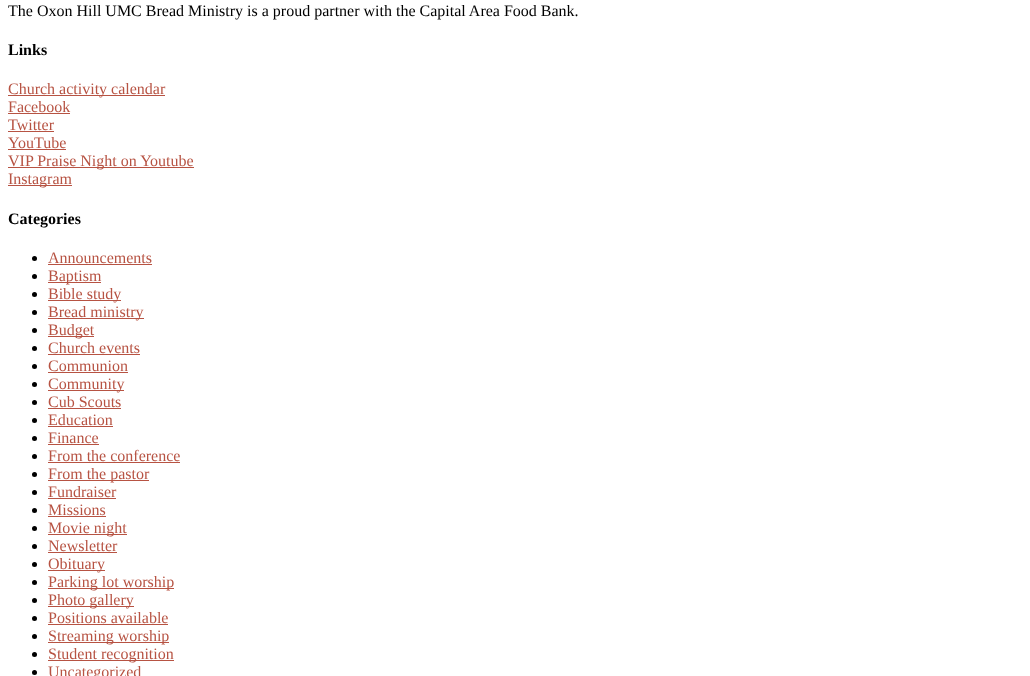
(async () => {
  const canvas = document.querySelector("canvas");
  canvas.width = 1030;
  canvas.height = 676;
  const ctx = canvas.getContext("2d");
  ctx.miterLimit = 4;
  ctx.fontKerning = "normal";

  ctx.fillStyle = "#ffffff";
  ctx.fillRect(0, 0, 1030, 676);
  for (const [x, y, w, h, color] of [
    [8, 95, 157, 1, "#b75343"],
    [8, 113, 62, 1, "#b75343"],
    [8, 131, 46, 1, "#b75343"],
    [8, 149, 58, 1, "#b75343"],
    [8, 167, 186, 1, "#b75343"],
    [8, 185, 64, 1, "#b75343"],
  ]) {
    ctx.fillStyle = color;
    ctx.fillRect(x, y, w, h);
  }
  ctx.fillStyle = "#000000";
  ctx.beginPath();
  ctx.arc(34.5, 258.5, 2.5, 0, Math.PI * 2);
  ctx.fill();
  ctx.fillStyle = "#b75343";
  ctx.fillRect(48, 264, 104, 1);
  ctx.fillStyle = "#000000";
  ctx.beginPath();
  ctx.arc(34.5, 276.5, 2.5, 0, Math.PI * 2);
  ctx.fill();
  ctx.fillStyle = "#b75343";
  ctx.fillRect(48, 282, 53, 1);
  ctx.fillStyle = "#000000";
  ctx.beginPath();
  ctx.arc(34.5, 294.5, 2.5, 0, Math.PI * 2);
  ctx.fill();
  ctx.fillStyle = "#b75343";
  ctx.fillRect(48, 300, 73, 1);
  ctx.fillStyle = "#000000";
  ctx.beginPath();
  ctx.arc(34.5, 312.5, 2.5, 0, Math.PI * 2);
  ctx.fill();
  ctx.fillStyle = "#b75343";
  ctx.fillRect(48, 318, 96, 1);
  ctx.fillStyle = "#000000";
  ctx.beginPath();
  ctx.arc(34.5, 330.5, 2.5, 0, Math.PI * 2);
  ctx.fill();
  ctx.fillStyle = "#b75343";
  ctx.fillRect(48, 336, 46, 1);
  ctx.fillStyle = "#000000";
  ctx.beginPath();
  ctx.arc(34.5, 348.5, 2.5, 0, Math.PI * 2);
  ctx.fill();
  ctx.fillStyle = "#b75343";
  ctx.fillRect(48, 354, 92, 1);
  ctx.fillStyle = "#000000";
  ctx.beginPath();
  ctx.arc(34.5, 366.5, 2.5, 0, Math.PI * 2);
  ctx.fill();
  ctx.fillStyle = "#b75343";
  ctx.fillRect(48, 372, 80, 1);
  ctx.fillStyle = "#000000";
  ctx.beginPath();
  ctx.arc(34.5, 384.5, 2.5, 0, Math.PI * 2);
  ctx.fill();
  ctx.fillStyle = "#b75343";
  ctx.fillRect(48, 390, 76, 1);
  ctx.fillStyle = "#000000";
  ctx.beginPath();
  ctx.arc(34.5, 402.5, 2.5, 0, Math.PI * 2);
  ctx.fill();
  ctx.fillStyle = "#b75343";
  ctx.fillRect(48, 408, 73, 1);
  ctx.fillStyle = "#000000";
  ctx.beginPath();
  ctx.arc(34.5, 420.5, 2.5, 0, Math.PI * 2);
  ctx.fill();
  ctx.fillStyle = "#b75343";
  ctx.fillRect(48, 426, 65, 1);
  ctx.fillStyle = "#000000";
  ctx.beginPath();
  ctx.arc(34.5, 438.5, 2.5, 0, Math.PI * 2);
  ctx.fill();
  ctx.fillStyle = "#b75343";
  ctx.fillRect(48, 444, 51, 1);
  ctx.fillStyle = "#000000";
  ctx.beginPath();
  ctx.arc(34.5, 456.5, 2.5, 0, Math.PI * 2);
  ctx.fill();
  ctx.fillStyle = "#b75343";
  ctx.fillRect(48, 462, 132, 1);
  ctx.fillStyle = "#000000";
  ctx.beginPath();
  ctx.arc(34.5, 474.5, 2.5, 0, Math.PI * 2);
  ctx.fill();
  ctx.fillStyle = "#b75343";
  ctx.fillRect(48, 480, 101, 1);
  ctx.fillStyle = "#000000";
  ctx.beginPath();
  ctx.arc(34.5, 492.5, 2.5, 0, Math.PI * 2);
  ctx.fill();
  ctx.fillStyle = "#b75343";
  ctx.fillRect(48, 498, 68, 1);
  ctx.fillStyle = "#000000";
  ctx.beginPath();
  ctx.arc(34.5, 510.5, 2.5, 0, Math.PI * 2);
  ctx.fill();
  ctx.fillStyle = "#b75343";
  ctx.fillRect(48, 516, 58, 1);
  ctx.fillStyle = "#000000";
  ctx.beginPath();
  ctx.arc(34.5, 528.5, 2.5, 0, Math.PI * 2);
  ctx.fill();
  ctx.fillStyle = "#b75343";
  ctx.fillRect(48, 534, 79, 1);
  ctx.fillStyle = "#000000";
  ctx.beginPath();
  ctx.arc(34.5, 546.5, 2.5, 0, Math.PI * 2);
  ctx.fill();
  ctx.fillStyle = "#b75343";
  ctx.fillRect(48, 552, 69, 1);
  ctx.fillStyle = "#000000";
  ctx.beginPath();
  ctx.arc(34.5, 564.5, 2.5, 0, Math.PI * 2);
  ctx.fill();
  ctx.fillStyle = "#b75343";
  ctx.fillRect(48, 570, 57, 1);
  ctx.fillStyle = "#000000";
  ctx.beginPath();
  ctx.arc(34.5, 582.5, 2.5, 0, Math.PI * 2);
  ctx.fill();
  ctx.fillStyle = "#b75343";
  ctx.fillRect(48, 588, 126, 1);
  ctx.fillStyle = "#000000";
  ctx.beginPath();
  ctx.arc(34.5, 600.5, 2.5, 0, Math.PI * 2);
  ctx.fill();
  ctx.fillStyle = "#b75343";
  ctx.fillRect(48, 606, 86, 1);
  ctx.fillStyle = "#000000";
  ctx.beginPath();
  ctx.arc(34.5, 618.5, 2.5, 0, Math.PI * 2);
  ctx.fill();
  ctx.fillStyle = "#b75343";
  ctx.fillRect(48, 624, 120, 1);
  ctx.fillStyle = "#000000";
  ctx.beginPath();
  ctx.arc(34.5, 636.5, 2.5, 0, Math.PI * 2);
  ctx.fill();
  ctx.fillStyle = "#b75343";
  ctx.fillRect(48, 642, 121, 1);
  ctx.fillStyle = "#000000";
  ctx.beginPath();
  ctx.arc(34.5, 654.5, 2.5, 0, Math.PI * 2);
  ctx.fill();
  ctx.fillStyle = "#b75343";
  ctx.fillRect(48, 660, 126, 1);
  ctx.fillStyle = "#000000";
  ctx.beginPath();
  ctx.arc(34.5, 672.5, 2.5, 0, Math.PI * 2);
  ctx.fill();
  ctx.font = "16px Liberation Serif";
  ctx.fillText("The Oxon Hill UMC Bread Ministry is a proud partner with the Capital Area Food Bank.", 8, 16);
  ctx.font = "bold 16px Liberation Serif";
  ctx.fillText("Links", 8, 55);
  ctx.font = "16px Liberation Serif";
  ctx.fillStyle = "#b75343";
  for (const [text, x, y] of [
    ["Church activity calendar", 8, 94],
    ["Facebook", 8, 112],
    ["Twitter", 8, 130],
    ["YouTube", 8, 148],
    ["VIP Praise Night on Youtube", 8, 166],
    ["Instagram", 8, 184],
  ]) {
    ctx.fillText(text, x, y);
  }
  ctx.font = "bold 16px Liberation Serif";
  ctx.fillStyle = "#000000";
  ctx.fillText("Categories", 8, 224);
  ctx.font = "16px Liberation Serif";
  ctx.fillStyle = "#b75343";
  for (const [text, x, y] of [
    ["Announcements", 48, 263],
    ["Baptism", 48, 281],
    ["Bible study", 48, 299],
    ["Bread ministry", 48, 317],
    ["Budget", 48, 335],
    ["Church events", 48, 353],
    ["Communion", 48, 371],
    ["Community", 48, 389],
    ["Cub Scouts", 48, 407],
    ["Education", 48, 425],
    ["Finance", 48, 443],
    ["From the conference", 48, 461],
    ["From the pastor", 48, 479],
    ["Fundraiser", 48, 497],
    ["Missions", 48, 515],
    ["Movie night", 48, 533],
    ["Newsletter", 48, 551],
    ["Obituary", 48, 569],
    ["Parking lot worship", 48, 587],
    ["Photo gallery", 48, 605],
    ["Positions available", 48, 623],
    ["Streaming worship", 48, 641],
    ["Student recognition", 48, 659],
    ["Uncategorized", 48, 677],
  ]) {
    ctx.fillText(text, x, y);
  }
})();
